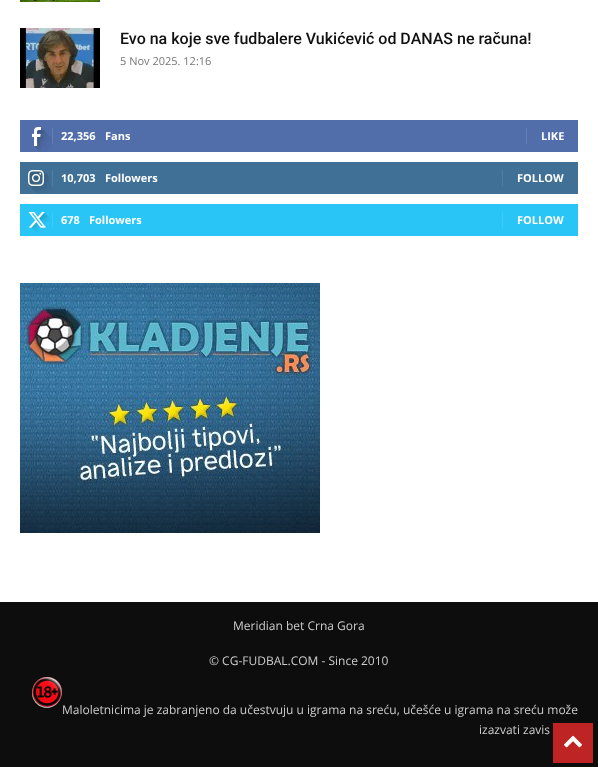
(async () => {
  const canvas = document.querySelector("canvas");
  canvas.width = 598;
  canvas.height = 767;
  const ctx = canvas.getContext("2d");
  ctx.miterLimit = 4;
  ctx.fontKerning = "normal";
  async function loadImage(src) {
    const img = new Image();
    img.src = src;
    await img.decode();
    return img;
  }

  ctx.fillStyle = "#ffffff";
  ctx.fillRect(0, 0, 598, 767);
  ctx.drawImage(await loadImage("img/1.png"), 20, 0, 80, 2);
  ctx.drawImage(await loadImage("img/2.png"), 20, 28, 80, 60);
  ctx.fillStyle = "#516eab";
  ctx.fillRect(20, 120, 558, 32);
  ctx.drawImage(await loadImage("img/3.png"), 32, 127, 20, 25);
  for (const [x, y, w, h, color] of [
    [52, 128, 1, 16, "#627db3"],
    [526, 128, 1, 16, "#627db3"],
    [20, 162, 558, 32, "#417096"],
  ]) {
    ctx.fillStyle = color;
    ctx.fillRect(x, y, w, h);
  }
  ctx.drawImage(await loadImage("img/4.png"), 28, 170, 23, 23);
  for (const [x, y, w, h, color] of [
    [52, 170, 1, 16, "#547ea1"],
    [502, 170, 1, 16, "#547ea1"],
    [20, 204, 558, 32, "#29c5f6"],
  ]) {
    ctx.fillStyle = color;
    ctx.fillRect(x, y, w, h);
  }
  ctx.drawImage(await loadImage("img/5.png"), 28, 212, 23, 21);
  ctx.fillStyle = "#3ecbf7";
  ctx.fillRect(52, 212, 1, 16);
  ctx.fillRect(502, 212, 1, 16);
  ctx.drawImage(await loadImage("img/6.png"), 20, 283, 300, 250);
  ctx.fillStyle = "#0d0d0d";
  ctx.fillRect(0, 602, 598, 165);
  ctx.drawImage(await loadImage("img/7.png"), 32, 677, 30, 31);
  ctx.fillStyle = "#be2424";
  ctx.fillRect(553, 723, 40, 40);
  ctx.drawImage(await loadImage("img/8.png"), 564, 735, 18, 13);
  ctx.font = "500 16px Roboto";
  ctx.fillStyle = "#111111";
  ctx.fillText("Evo na koje sve fudbalere Vukićević od DANAS ne računa!", 120, 44);
  ctx.font = "11px Open Sans";
  ctx.fillStyle = "#767676";
  ctx.fillText("5 Nov 2025. 12:16", 120, 65);
  ctx.font = "bold 11px Open Sans";
  ctx.fillStyle = "#ffffff";
  for (const [text, x, y] of [
    ["22,356", 61, 140],
    ["Fans", 105, 140],
    ["LIKE", 541, 140],
    ["10,703", 61, 182],
    ["Followers", 105, 182],
    ["FOLLOW", 517, 182],
    ["678", 61, 224],
    ["Followers", 89, 224],
    ["FOLLOW", 517, 224],
  ]) {
    ctx.fillText(text, x, y);
  }
  ctx.font = "12px Open Sans";
  ctx.fillStyle = "#cccccc";
  for (const [text, x, y] of [
    ["Meridian bet Crna Gora", 233, 630],
    ["© CG-FUDBAL.COM - Since 2010", 209, 665],
    ["Maloletnicima je zabranjeno da učestvuju u igrama na sreću, učešće u igrama na sreću može", 62, 714],
    ["izazvati zavis", 479, 734],
  ]) {
    ctx.fillText(text, x, y);
  }
})();
